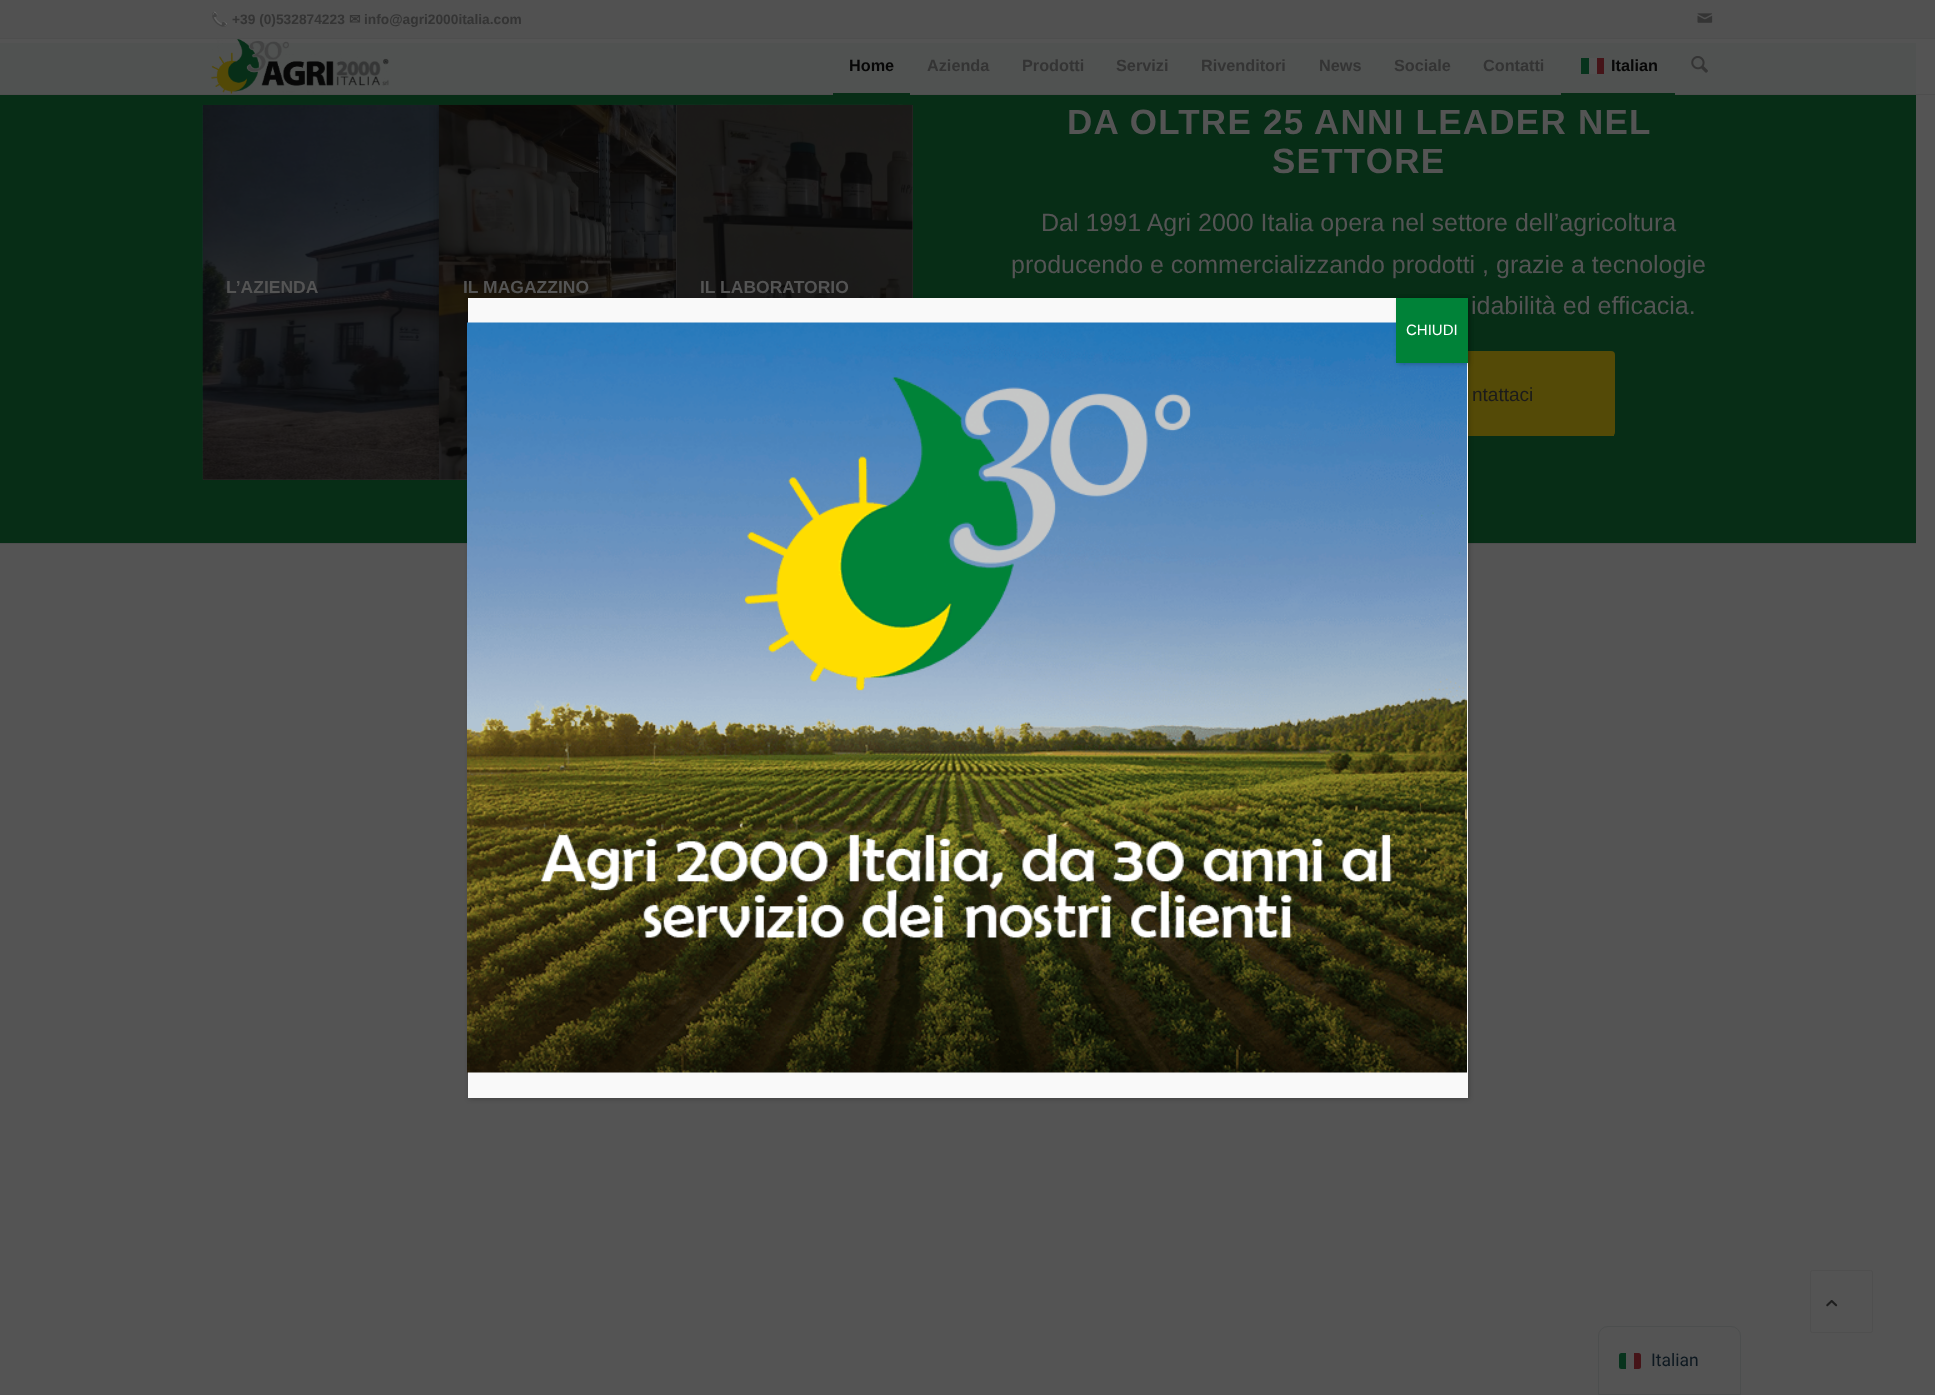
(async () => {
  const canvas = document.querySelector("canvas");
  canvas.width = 1935;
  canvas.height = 1395;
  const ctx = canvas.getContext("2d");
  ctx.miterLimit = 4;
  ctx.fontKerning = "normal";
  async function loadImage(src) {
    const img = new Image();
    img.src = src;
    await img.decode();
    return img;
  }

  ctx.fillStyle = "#545454";
  ctx.fillRect(0, 0, 1935, 1395);
  ctx.fillStyle = "#515151";
  ctx.fillRect(0, 0, 1935, 38);
  ctx.fillStyle = "#4e4e4e";
  ctx.fillRect(0, 38, 1935, 1);
  ctx.drawImage(await loadImage("img/1.png"), 1697, 13, 16, 10);
  for (const [x, y, w, h, color] of [
    [0, 95, 1916, 448, "#072d16"],
    [0, 43, 1916, 51, "#505251"],
    [203, 479, 236, 1, "#515151"],
  ]) {
    ctx.fillStyle = color;
    ctx.fillRect(x, y, w, h);
  }
  ctx.drawImage(await loadImage("img/4.png"), 202, 104, 710, 376);
  ctx.fillStyle = "rgba(7, 7, 7, 0.5)";
  ctx.fillRect(203, 105, 236, 375);
  ctx.save();
  ctx.beginPath();
  ctx.rect(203, 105, 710, 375);
  ctx.clip();
  ctx.fillStyle = "rgba(7, 7, 7, 0.4)";
  ctx.filter = "blur(4px)";
  ctx.beginPath();
  ctx.rect(439, 105, 711, 375);
  ctx.fill();
  ctx.filter = "none";
  ctx.restore();
  ctx.fillStyle = "#515151";
  ctx.fillRect(439, 479, 28, 1);
  ctx.drawImage(await loadImage("img/5.png"), 438, 104, 475, 376);
  ctx.fillStyle = "rgba(7, 7, 7, 0.5)";
  ctx.fillRect(439, 105, 237, 375);
  ctx.save();
  ctx.beginPath();
  ctx.rect(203, 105, 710, 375);
  ctx.clip();
  ctx.fillStyle = "rgba(7, 7, 7, 0.4)";
  ctx.filter = "blur(4px)";
  ctx.beginPath();
  ctx.rect(676, 105, 710, 375);
  ctx.fill();
  ctx.filter = "none";
  ctx.restore();
  ctx.fillStyle = "#4e4e4e";
  ctx.fillRect(0, 94, 1935, 1);
  ctx.drawImage(await loadImage("img/2.png"), 211, 39, 178, 55);
  for (const [x, y, w, h, color] of [
    [833, 93, 77, 2, "#072d16"],
    [1589, 58, 8, 16, "#545454"],
    [1581, 58, 8, 16, "#07331c"],
    [1597, 58, 7, 16, "#451418"],
    [1561, 93, 114, 2, "#072d16"],
  ]) {
    ctx.fillStyle = color;
    ctx.fillRect(x, y, w, h);
  }
  ctx.drawImage(await loadImage("img/3.png"), 1691, 56, 17, 17);
  ctx.fillStyle = "#515151";
  ctx.fillRect(676, 105, 237, 193);
  ctx.drawImage(await loadImage("img/6.png"), 676, 104, 237, 194);
  ctx.fillStyle = "rgba(7, 7, 7, 0.5)";
  ctx.fillRect(676, 105, 237, 193);
  ctx.fillStyle = "#544a07";
  ctx.beginPath();
  ctx.roundRect(1365, 351, 250, 85, 4);
  ctx.fill();
  ctx.fillRect(1611, 435, 3, 1);
  ctx.fillStyle = "#4e4e4e";
  ctx.fillRect(0, 543, 1916, 1);
  ctx.fillStyle = "rgba(2, 2, 2, 0.23)";
  ctx.filter = "blur(2.5px)";
  ctx.beginPath();
  ctx.rect(469, 299, 1000, 800);
  ctx.fill();
  ctx.filter = "none";
  ctx.fillStyle = "#f9f9f9";
  ctx.fillRect(468, 298, 1000, 800);
  ctx.drawImage(await loadImage("img/7.png"), 467, 322, 1000, 751);
  ctx.fillStyle = "rgba(2, 2, 2, 0.23)";
  ctx.filter = "blur(2px)";
  ctx.beginPath();
  ctx.rect(1398, 299, 71, 65);
  ctx.fill();
  ctx.filter = "none";
  ctx.fillStyle = "#008238";
  ctx.fillRect(1396, 298, 72, 65);
  ctx.beginPath();
  ctx.roundRect(1810.5, 1270.5, 62, 62, 2);
  ctx.strokeStyle = "#4f4f4f";
  ctx.stroke();
  ctx.drawImage(await loadImage("img/8.png"), 1826, 1300, 12, 7);
  ctx.beginPath();
  ctx.roundRect(1598.5, 1326.5, 142, 68, [9.5, 9.5, 0, 0]);
  ctx.strokeStyle = "#4c4e4e";
  ctx.stroke();
  ctx.fillStyle = "#07331c";
  ctx.beginPath();
  ctx.roundRect(1619, 1353, 7, 16, [2.5, 0, 0, 2.5]);
  ctx.fill();
  ctx.fillStyle = "#451418";
  ctx.beginPath();
  ctx.roundRect(1634, 1353, 7, 16, [0, 2.5, 2.5, 0]);
  ctx.fill();
  ctx.font = "bold 13.75px Noto Color Emoji";
  ctx.fillStyle = "#343434";
  ctx.fillText("📞", 211, 24);
  ctx.font = "bold 13.75px Liberation Sans";
  ctx.fillText("+39 (0)532874223", 232, 24);
  ctx.font = "bold 13.75px DejaVu Sans";
  ctx.fillText("✉", 349, 24);
  ctx.font = "bold 13.75px Liberation Sans";
  ctx.fillText("info@agri2000italia.com", 364, 24);
  ctx.font = "bold 16.25px Liberation Sans";
  ctx.fillStyle = "#070707";
  ctx.fillText("Home", 849, 71);
  ctx.fillStyle = "#343434";
  for (const [text, x, y] of [
    ["Azienda", 927, 71],
    ["Prodotti", 1022, 71],
    ["Servizi", 1116, 71],
    ["Rivenditori", 1201, 71],
    ["News", 1319, 71],
    ["Sociale", 1394, 71],
    ["Contatti", 1483, 71],
  ]) {
    ctx.fillText(text, x, y);
  }
  ctx.fillStyle = "#070707";
  ctx.fillText("Italian", 1611, 71);
  ctx.font = "bold 17.5px Liberation Sans";
  ctx.fillStyle = "#545454";
  for (const [text, x, y] of [
    ["L’AZIENDA", 226, 293],
    ["IL MAGAZZINO", 463, 293],
    ["IL LABORATORIO", 700, 293],
  ]) {
    ctx.fillText(text, x, y);
  }
  ctx.letterSpacing = "1.25px";
  ctx.font = "bold 35px Liberation Sans";
  ctx.fillText("DA OLTRE 25 ANNI LEADER NEL", 1067, 134);
  ctx.fillText("SETTORE", 1272, 173);
  ctx.letterSpacing = "0px";
  ctx.font = "25px Liberation Sans";
  for (const [text, x, y] of [
    ["Dal 1991 Agri 2000 Italia opera nel settore dell’agricoltura", 1041, 231],
    ["producendo e commercializzando prodotti , grazie a tecnologie", 1011, 273],
    ["idabilità ed efficacia.", 1471, 314],
  ]) {
    ctx.fillText(text, x, y);
  }
  ctx.font = "19px Liberation Sans";
  ctx.fillStyle = "#1b1b1b";
  ctx.fillText("ntattaci", 1472, 401);
  ctx.font = "15px Liberation Sans";
  ctx.fillStyle = "#ffffff";
  ctx.fillText("CHIUDI", 1406, 335);
  ctx.font = "17.5px Roboto";
  ctx.fillStyle = "#0d1820";
  ctx.fillText("Italian", 1651, 1366);
})();
